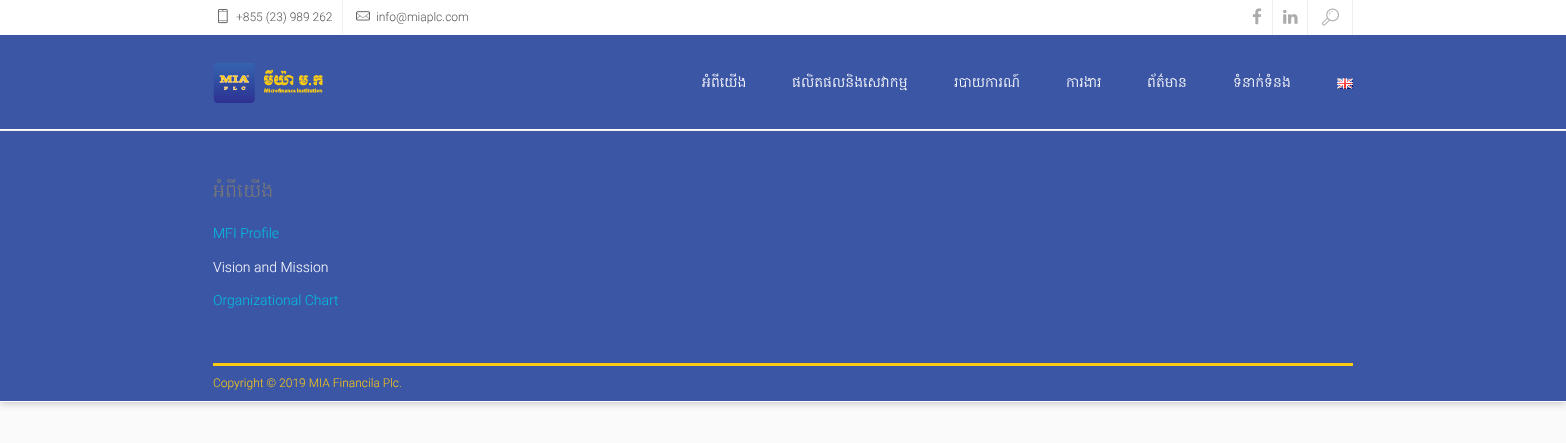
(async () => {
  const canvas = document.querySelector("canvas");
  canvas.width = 1566;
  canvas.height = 443;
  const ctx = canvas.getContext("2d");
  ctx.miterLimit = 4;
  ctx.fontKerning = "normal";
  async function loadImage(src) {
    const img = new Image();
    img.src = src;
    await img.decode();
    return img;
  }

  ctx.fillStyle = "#fafafa";
  ctx.fillRect(0, 0, 1566, 443);
  ctx.fillStyle = "#b4b4b4";
  ctx.filter = "blur(5px)";
  ctx.beginPath();
  ctx.rect(0, 0, 1566, 402);
  ctx.fill();
  ctx.filter = "none";
  ctx.fillStyle = "#ffffff";
  ctx.fillRect(0, 0, 1566, 402);
  ctx.fillStyle = "#eeeeee";
  ctx.fillRect(342, 0, 1, 34);
  ctx.drawImage(await loadImage("img/1.png"), 218, 9, 10, 15);
  ctx.drawImage(await loadImage("img/2.png"), 356, 11, 14, 10);
  ctx.fillRect(1272, 0, 1, 35);
  ctx.drawImage(await loadImage("img/3.png"), 1252, 8, 10, 17);
  ctx.fillRect(1307, 0, 1, 35);
  ctx.drawImage(await loadImage("img/4.png"), 1283, 9, 15, 15);
  ctx.fillRect(1352, 0, 1, 35);
  ctx.drawImage(await loadImage("img/5.png"), 1322, 8, 17, 18);
  ctx.fillStyle = "#3c56a6";
  ctx.fillRect(0, 35, 1566, 94);
  ctx.drawImage(await loadImage("img/6.png"), 213, 63, 110, 40);
  ctx.drawImage(await loadImage("img/7.png"), 1337, 78, 16, 11);
  for (const [x, y, w, h, color] of [
    [0, 131, 1566, 270, "#3c56a6"],
    [0, 130, 1566, 1, "#eeeeee"],
    [213, 363, 1140, 3, "#fbca14"],
  ]) {
    ctx.fillStyle = color;
    ctx.fillRect(x, y, w, h);
  }
  ctx.font = "300 12px Roboto";
  ctx.fillStyle = "#555555";
  ctx.fillText("+855 (23) 989 262", 236, 21);
  ctx.fillText("info@miaplc.com", 376, 21);
  ctx.font = "300 14px Hanuman";
  ctx.fillStyle = "#ffffff";
  for (const [text, x, y] of [
    ["អំពីយើង", 702, 87],
    ["ផលិតផលនិងសេវាកម្ម", 792, 87],
    ["របាយការណ៍", 954, 87],
    ["ការងារ", 1066, 87],
    ["ព័ត៌មាន", 1147, 87],
    ["ទំនាក់ទំនង", 1233, 87],
  ]) {
    ctx.fillText(text, x, y);
  }
  ctx.font = "300 19px Hanuman";
  ctx.fillStyle = "#777777";
  ctx.fillText("អំពីយើង", 213, 197);
  ctx.font = "300 14px Roboto";
  ctx.fillStyle = "#00c0e1";
  ctx.fillText("MFI Profile", 213, 238);
  ctx.fillStyle = "#ffffff";
  ctx.fillText("Vision and Mission", 213, 272);
  ctx.fillStyle = "#00c0e1";
  ctx.fillText("Organizational Chart", 213, 305);
  ctx.font = "300 12px Roboto";
  ctx.fillStyle = "#fbca14";
  ctx.fillText("Copyright © 2019 MIA Financila Plc.", 213, 387);
})();
